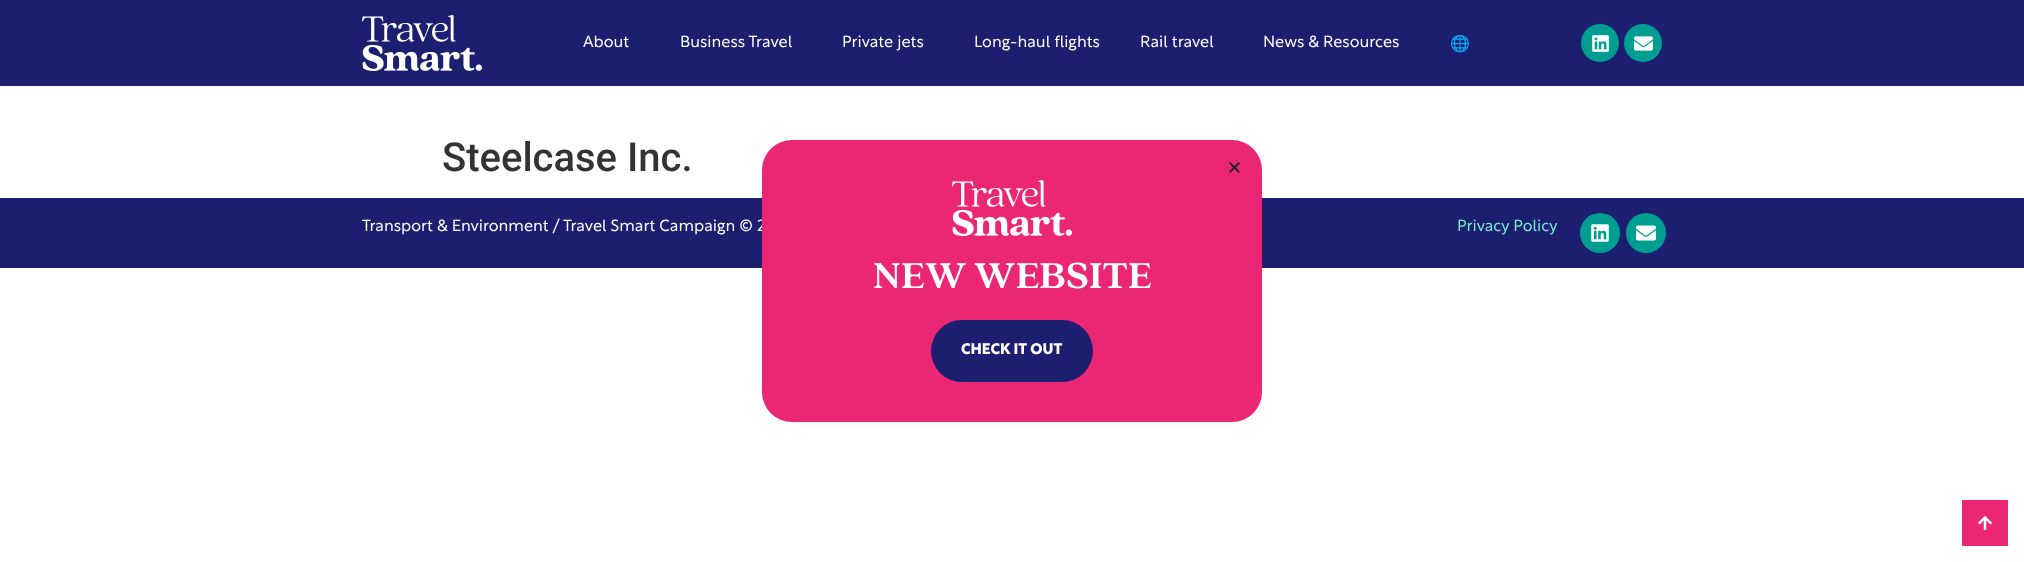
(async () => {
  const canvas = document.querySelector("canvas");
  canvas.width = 2024;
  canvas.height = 562;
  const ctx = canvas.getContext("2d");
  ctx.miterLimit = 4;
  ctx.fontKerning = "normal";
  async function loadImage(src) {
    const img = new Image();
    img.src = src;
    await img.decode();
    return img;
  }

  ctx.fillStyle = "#ffffff";
  ctx.fillRect(0, 0, 2024, 562);
  ctx.fillStyle = "#1c1f70";
  ctx.fillRect(0, 0, 2024, 86);
  ctx.drawImage(await loadImage("img/1.png"), 362, 15, 120, 56);
  ctx.fillStyle = "#009e91";
  ctx.beginPath();
  ctx.arc(1600, 43, 19, 0, Math.PI * 2);
  ctx.fill();
  ctx.drawImage(await loadImage("img/2.png"), 1592, 35, 17, 17);
  ctx.beginPath();
  ctx.arc(1643, 43, 19, 0, Math.PI * 2);
  ctx.fill();
  ctx.drawImage(await loadImage("img/3.png"), 1634, 36, 19, 15);
  ctx.fillStyle = "#1c1f70";
  ctx.fillRect(0, 198, 2024, 70);
  ctx.fillStyle = "#eb2675";
  ctx.fillRect(1962, 500, 46, 46);
  ctx.drawImage(await loadImage("img/4.png"), 1978, 516, 14, 14);
  ctx.fillStyle = "#009e91";
  ctx.beginPath();
  ctx.arc(1600, 233, 20, 0, Math.PI * 2);
  ctx.fill();
  ctx.drawImage(await loadImage("img/5.png"), 1591, 224, 18, 18);
  ctx.beginPath();
  ctx.arc(1646, 233, 20, 0, Math.PI * 2);
  ctx.fill();
  ctx.drawImage(await loadImage("img/6.png"), 1636, 225, 20, 16);
  ctx.font = "300 16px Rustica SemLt";
  ctx.fillStyle = "#ffffff";
  for (const [text, x, y] of [
    ["About", 583, 47],
    ["Business Travel", 680, 47],
    ["Private jets", 842, 47],
    ["Long-haul flights", 974, 47],
    ["Rail travel", 1140, 47],
    ["News & Resources", 1263, 47],
  ]) {
    ctx.fillText(text, x, y);
  }
  ctx.font = "16px Noto Color Emoji";
  ctx.fillText("🌐", 1450, 49);
  ctx.font = "500 40px Roboto";
  ctx.fillStyle = "#333333";
  ctx.fillText("Steelcase Inc.", 442, 171);
  ctx.font = "300 16px Rustica SemLt";
  ctx.fillStyle = "#ffffff";
  ctx.fillText("Transport & Environment / Travel Smart Campaign © 2", 362, 231);
  ctx.fillStyle = "#7aebcc";
  ctx.fillText("Privacy Policy", 1457, 231);
  ctx.fillStyle = "#eb2675";
  ctx.beginPath();
  ctx.roundRect(762, 140, 500, 282, 30);
  ctx.fill();
  ctx.drawImage(await loadImage("img/7.png"), 1229, 162, 11, 11);
  ctx.drawImage(await loadImage("img/8.png"), 952, 180, 120, 56);
  ctx.font = "bold 40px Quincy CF";
  ctx.fillStyle = "#ffffff";
  ctx.fillText("NEW WEBSITE", 873, 288);
  ctx.fillStyle = "#1c1f70";
  ctx.beginPath();
  ctx.roundRect(931, 320, 162, 62, 31);
  ctx.fill();
  ctx.font = "bold 15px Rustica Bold";
  ctx.fillStyle = "#ffffff";
  ctx.fillText("CHECK IT OUT", 961, 354);
})();
